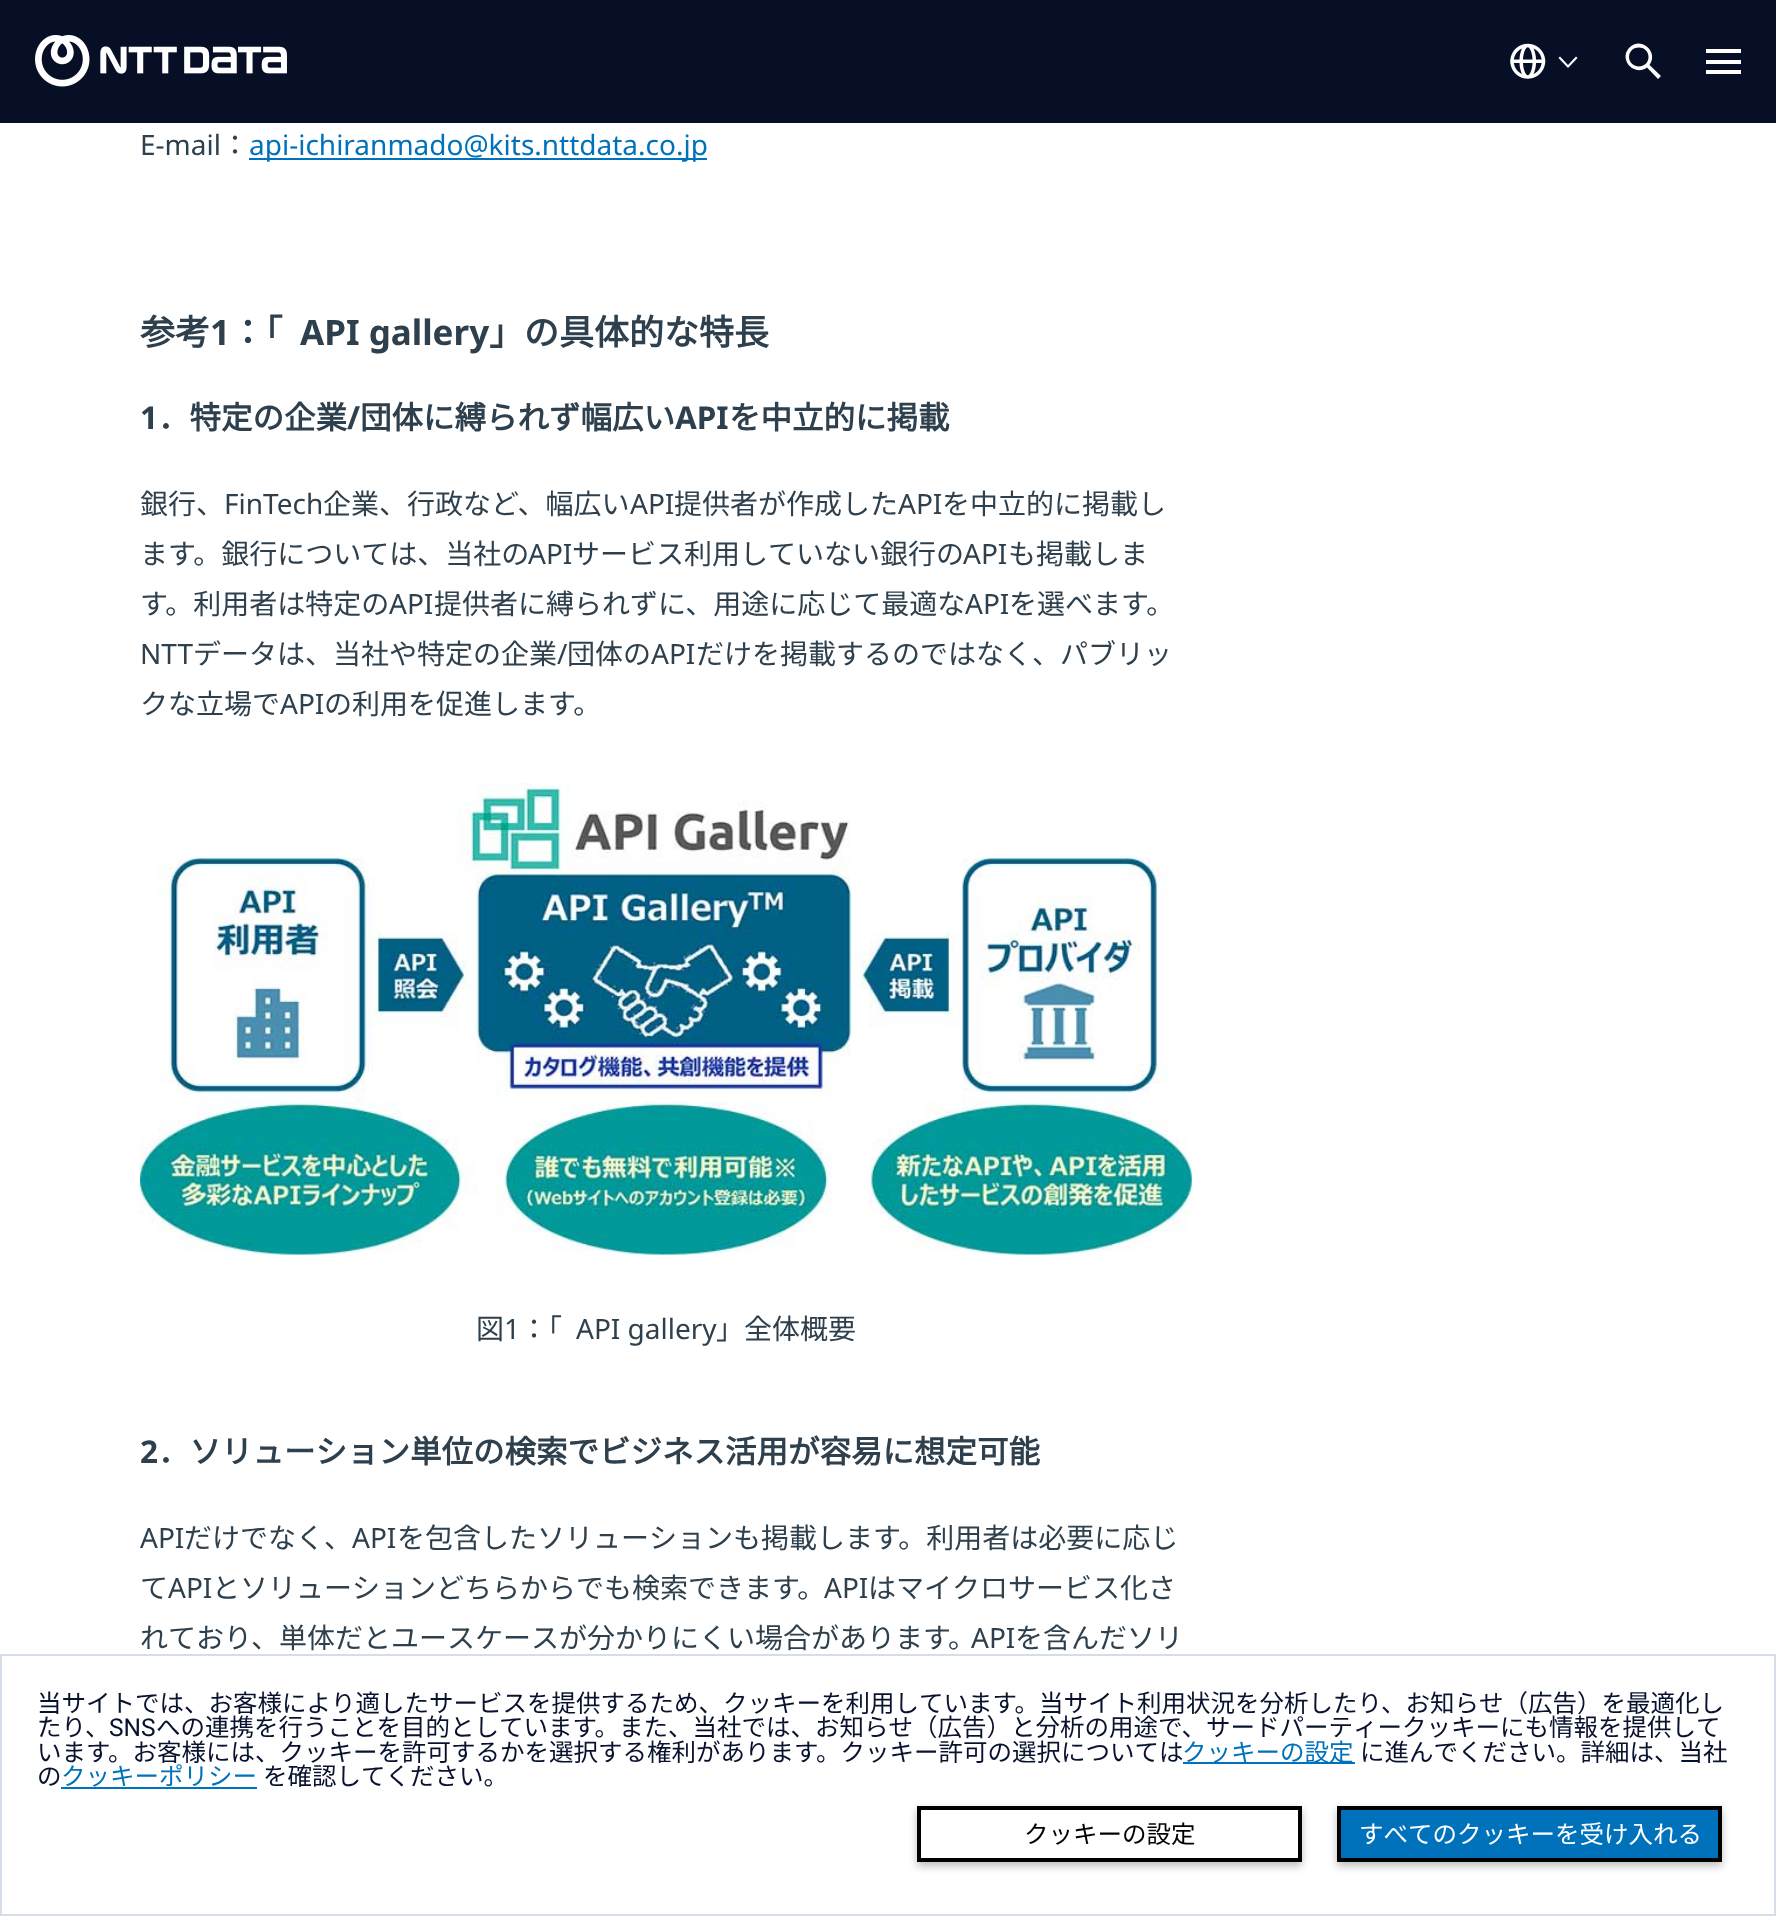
(async () => {
  const canvas = document.querySelector("canvas");
  canvas.width = 1776;
  canvas.height = 1916;
  const ctx = canvas.getContext("2d");
  ctx.miterLimit = 4;
  ctx.fontKerning = "normal";
  async function loadImage(src) {
    const img = new Image();
    img.src = src;
    await img.decode();
    return img;
  }
  let path;

  ctx.fillStyle = "#ffffff";
  ctx.fillRect(0, 0, 1776, 1916);
  ctx.fillStyle = "#070f26";
  ctx.fillRect(0, 0, 1776, 123);
  ctx.drawImage(await loadImage("img/1.png"), 35, 35, 252, 52);
  ctx.drawImage(await loadImage("img/2.png"), 1510, 43, 36, 36);
  ctx.fillStyle = "#ffffff";
  path = new Path2D("M1576 56.5L1568 65L1560 56.5L1558.5 58L1568 68L1577.5 58Z");
  ctx.fill(path);
  path = new Path2D("M1661 76L1649.5 65C1659 52 1641 36 1629.5 47.5C1618 59 1634 77 1647 67.5L1658 79ZM1629 57C1629.5 44 1648.5 44.5 1648.5 57C1648.5 69.5 1629.5 69.5 1629 57Z");
  ctx.fill(path);
  for (const [x, y, w, h, color] of [
    [1706, 60, 35, 4, "#ffffff"],
    [1706, 49, 35, 4, "#ffffff"],
    [1706, 70, 35, 4, "#ffffff"],
    [249, 158, 458, 2, "#0072bc"],
  ]) {
    ctx.fillStyle = color;
    ctx.fillRect(x, y, w, h);
  }
  ctx.drawImage(await loadImage("img/3.png"), 140, 783, 1052, 472);
  ctx.strokeStyle = "#d5ddeb";
  ctx.lineWidth = 2;
  ctx.strokeRect(1, 1655, 1774, 260);
  ctx.fillRect(1183, 1762, 172, 2);
  ctx.fillRect(61, 1787, 196, 2);
  ctx.save();
  path = new Path2D("M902 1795H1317V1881H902ZM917 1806H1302V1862H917Z");
  ctx.clip(path, "evenodd");
  ctx.fillStyle = "rgba(0, 0, 0, 0.26)";
  ctx.filter = "blur(4.5px)";
  ctx.beginPath();
  ctx.rect(917, 1810, 385, 56);
  ctx.fill();
  ctx.filter = "none";
  ctx.restore();
  ctx.strokeStyle = "#000000";
  ctx.lineWidth = 4;
  ctx.strokeRect(919, 1808, 381, 52);
  ctx.fillStyle = "rgba(0, 0, 0, 0.26)";
  ctx.filter = "blur(4.5px)";
  ctx.beginPath();
  ctx.rect(1337, 1810, 385, 56);
  ctx.fill();
  ctx.filter = "none";
  ctx.fillStyle = "#0072bc";
  ctx.beginPath();
  ctx.rect(1339, 1808, 381, 52);
  ctx.fill();
  ctx.stroke();
  ctx.font = "28px Noto Sans";
  ctx.fillStyle = "#2e404d";
  ctx.fillText("E-mail", 140, 155);
  ctx.font = "100 28px Noto Sans JP";
  ctx.fillText("：", 221, 155);
  ctx.font = "28px Noto Sans";
  ctx.fillStyle = "#0072bc";
  ctx.fillText("api-ichiranmado@kits.nttdata.co.jp", 249, 155);
  ctx.font = "bold 35px Noto Sans JP";
  ctx.fillStyle = "#2e404d";
  ctx.fillText("参考", 140, 345);
  ctx.font = "bold 35px Noto Sans";
  ctx.fillText("1", 210, 345);
  ctx.font = "bold 35px Noto Sans JP";
  ctx.fillText("：「", 230, 345);
  ctx.font = "bold 35px Noto Sans";
  ctx.fillText("API gallery", 300, 345);
  ctx.font = "bold 35px Noto Sans JP";
  ctx.fillText("」の具体的な特長", 489, 345);
  ctx.font = "bold 31.5px Noto Sans";
  ctx.fillText("1", 140, 429);
  ctx.font = "bold 31.5px Noto Sans JP";
  ctx.fillText("．特定の企業", 158, 429);
  ctx.font = "bold 31.5px Noto Sans";
  ctx.fillText("/", 347, 429);
  ctx.font = "bold 31.5px Noto Sans JP";
  ctx.fillText("団体に縛られず幅広い", 360, 429);
  ctx.font = "bold 31.5px Noto Sans";
  ctx.fillText("API", 675, 429);
  ctx.font = "bold 31.5px Noto Sans JP";
  ctx.fillText("を中立的に掲載", 729, 429);
  ctx.font = "100 28px Noto Sans JP";
  ctx.fillText("銀行、", 140, 514);
  ctx.font = "28px Noto Sans";
  ctx.fillText("FinTech", 224, 514);
  ctx.font = "100 28px Noto Sans JP";
  ctx.fillText("企業、行政など、幅広い", 323, 514);
  ctx.font = "28px Noto Sans";
  ctx.fillText("API", 630, 514);
  ctx.font = "100 28px Noto Sans JP";
  ctx.fillText("提供者が作成した", 674, 514);
  ctx.font = "28px Noto Sans";
  ctx.fillText("API", 898, 514);
  ctx.font = "100 28px Noto Sans JP";
  ctx.fillText("を中立的に掲載し", 942, 514);
  ctx.fillText("ます。銀行については、当社の", 140, 564);
  ctx.font = "28px Noto Sans";
  ctx.fillText("API", 528, 564);
  ctx.font = "100 28px Noto Sans JP";
  ctx.fillText("サービス利用していない銀行の", 572, 564);
  ctx.font = "28px Noto Sans";
  ctx.fillText("API", 963, 564);
  ctx.font = "100 28px Noto Sans JP";
  ctx.fillText("も掲載しま", 1008, 564);
  ctx.fillText("す。利用者は特定の", 140, 614);
  ctx.font = "28px Noto Sans";
  ctx.fillText("API", 389, 614);
  ctx.font = "100 28px Noto Sans JP";
  ctx.fillText("提供者に縛られずに、用途に応じて最適な", 434, 614);
  ctx.font = "28px Noto Sans";
  ctx.fillText("API", 965, 614);
  ctx.font = "100 28px Noto Sans JP";
  ctx.fillText("を選べます。", 1009, 614);
  ctx.font = "28px Noto Sans";
  ctx.fillText("NTT", 140, 664);
  ctx.font = "100 28px Noto Sans JP";
  ctx.fillText("データは、当社や特定の企業", 193, 664);
  ctx.font = "28px Noto Sans";
  ctx.fillText("/", 557, 664);
  ctx.font = "100 28px Noto Sans JP";
  ctx.fillText("団体の", 567, 664);
  ctx.font = "28px Noto Sans";
  ctx.fillText("API", 651, 664);
  ctx.font = "100 28px Noto Sans JP";
  ctx.fillText("だけを掲載するのではなく、パブリッ", 696, 664);
  ctx.fillText("クな立場で", 140, 714);
  ctx.font = "28px Noto Sans";
  ctx.fillText("API", 280, 714);
  ctx.font = "100 28px Noto Sans JP";
  ctx.fillText("の利用を促進します。", 324, 714);
  ctx.fillText("図", 476, 1339);
  ctx.font = "28px Noto Sans";
  ctx.fillText("1", 504, 1339);
  ctx.font = "100 28px Noto Sans JP";
  ctx.fillText("：「", 520, 1339);
  ctx.font = "28px Noto Sans";
  ctx.fillText("API gallery", 576, 1339);
  ctx.font = "100 28px Noto Sans JP";
  ctx.fillText("」全体概要", 716, 1339);
  ctx.font = "bold 31.5px Noto Sans";
  ctx.fillText("2", 140, 1463);
  ctx.font = "bold 31.5px Noto Sans JP";
  ctx.fillText("．ソリューション単位の検索でビジネス活用が容易に想定可能", 158, 1463);
  ctx.font = "28px Noto Sans";
  ctx.fillText("API", 140, 1548);
  ctx.font = "100 28px Noto Sans JP";
  ctx.fillText("だけでなく、", 184, 1548);
  ctx.font = "28px Noto Sans";
  ctx.fillText("API", 352, 1548);
  ctx.font = "100 28px Noto Sans JP";
  ctx.fillText("を包含したソリューションも掲載します。利用者は必要に応じ", 397, 1548);
  ctx.fillText("て", 140, 1598);
  ctx.font = "28px Noto Sans";
  ctx.fillText("API", 168, 1598);
  ctx.font = "100 28px Noto Sans JP";
  ctx.fillText("とソリューションどちらからでも検索できます。", 212, 1598);
  ctx.font = "28px Noto Sans";
  ctx.fillText("API", 824, 1598);
  ctx.font = "100 28px Noto Sans JP";
  ctx.fillText("はマイクロサービス化さ", 868, 1598);
  ctx.fillText("れており、単体だとユースケースが分かりにくい場合があります。", 140, 1648);
  ctx.font = "28px Noto Sans";
  ctx.fillText("API", 971, 1648);
  ctx.font = "100 28px Noto Sans JP";
  ctx.fillText("を含んだソリ", 1015, 1648);
  ctx.font = "100 24.5px Noto Sans JP";
  ctx.fillStyle = "#08122e";
  ctx.fillText("当サイトでは、お客様により適したサービスを提供するため、クッキーを利用しています。当サイト利用状況を分析したり、お知らせ（広告）を最適化し", 37, 1712);
  ctx.fillText("たり、", 37, 1736);
  ctx.font = "24.5px Roboto";
  ctx.fillText("SNS", 109, 1736);
  ctx.font = "100 24.5px Noto Sans JP";
  ctx.fillText("への連携を行うことを目的としています。また、当社では、お知らせ（広告）と分析の用途で、サードパーティークッキーにも情報を提供して", 156, 1736);
  ctx.fillText("います。お客様には、クッキーを許可するかを選択する権利があります。クッキー許可の選択については", 37, 1761);
  ctx.fillStyle = "#0072bc";
  ctx.fillText("クッキーの設定", 1182, 1761);
  ctx.fillStyle = "#08122e";
  ctx.fillText("に進んでください。詳細は、当社", 1360, 1761);
  ctx.fillText("の", 37, 1785);
  ctx.fillStyle = "#0072bc";
  ctx.fillText("クッキーポリシー", 61, 1785);
  ctx.fillStyle = "#08122e";
  ctx.fillText("を確認してください。", 263, 1785);
  ctx.fillStyle = "#000000";
  ctx.fillText("クッキーの設定", 1024, 1843);
  ctx.fillStyle = "#ffffff";
  ctx.fillText("すべてのクッキーを受け入れる", 1359, 1843);
})();
